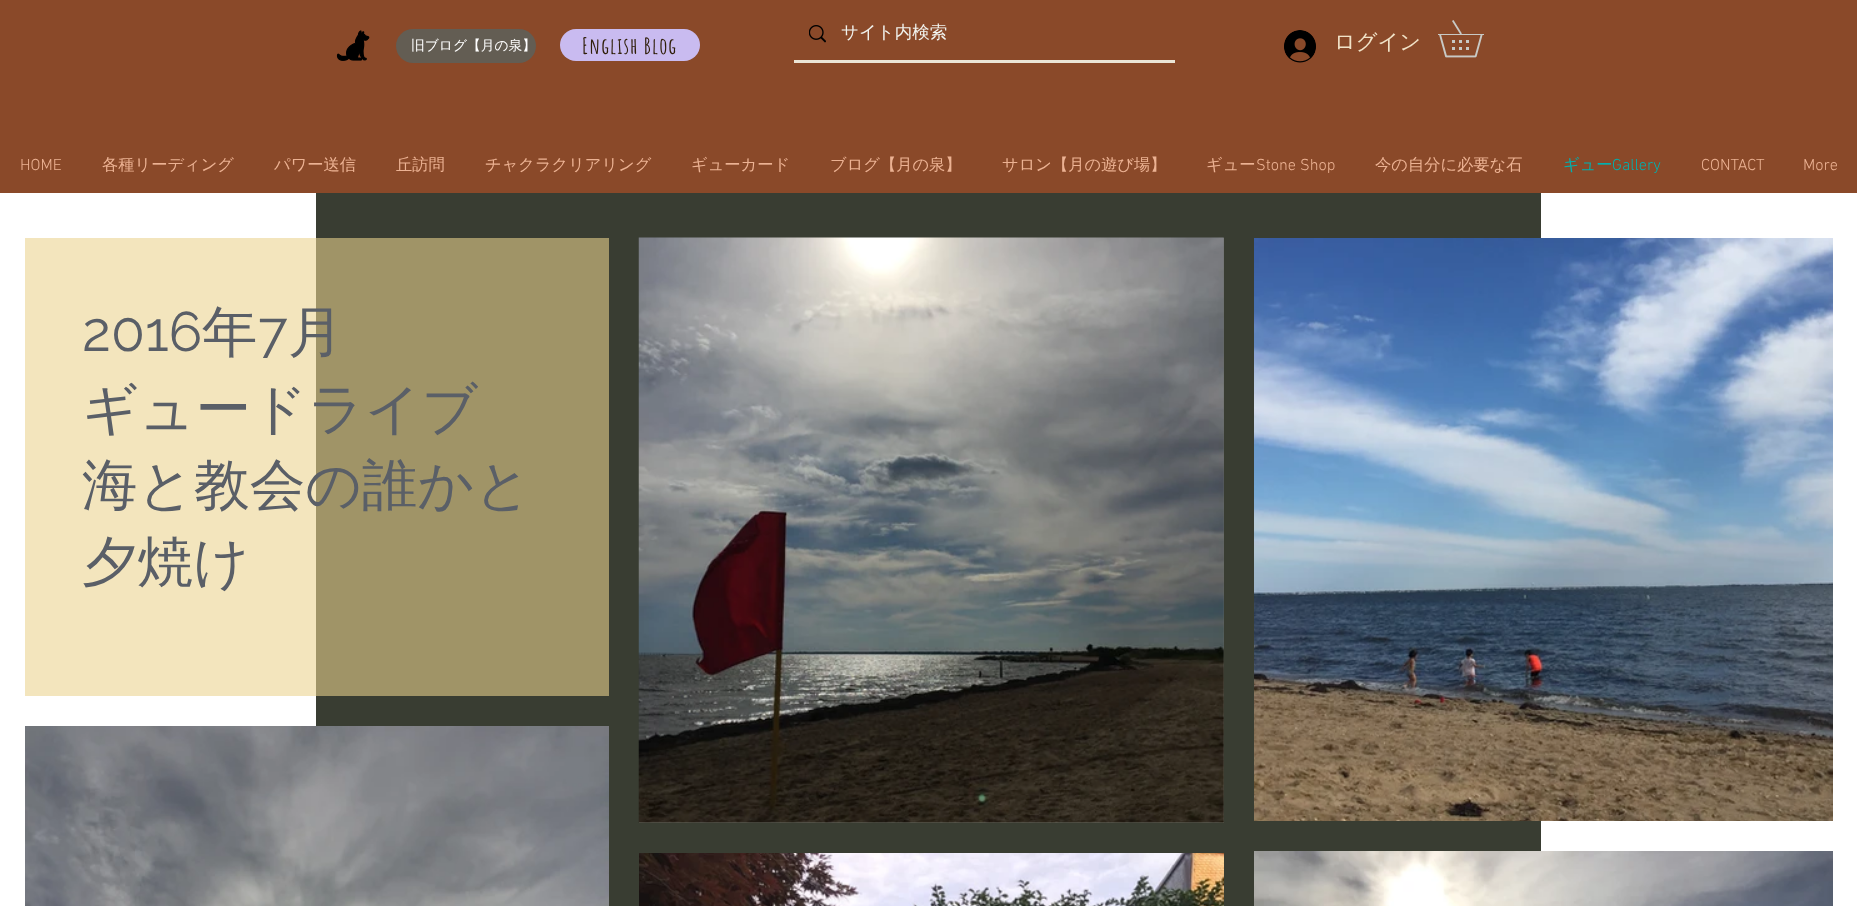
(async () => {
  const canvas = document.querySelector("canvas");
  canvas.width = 1857;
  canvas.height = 906;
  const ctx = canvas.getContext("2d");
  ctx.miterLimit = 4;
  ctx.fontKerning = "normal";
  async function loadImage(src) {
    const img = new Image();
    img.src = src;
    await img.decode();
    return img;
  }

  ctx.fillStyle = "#ffffff";
  ctx.fillRect(0, 0, 1857, 906);
  ctx.fillStyle = "#f3e5bd";
  ctx.fillRect(25, 238, 291, 458);
  ctx.fillStyle = "#8a4929";
  ctx.fillRect(0, 0, 1857, 193);
  ctx.drawImage(await loadImage("img/1.png"), 336, 30, 34, 31);
  ctx.fillStyle = "#635d53";
  ctx.beginPath();
  ctx.roundRect(396, 29, 140, 34, 17);
  ctx.fill();
  ctx.fillStyle = "#c9bbf0";
  ctx.beginPath();
  ctx.roundRect(560, 29, 140, 32, 16);
  ctx.fill();
  ctx.fillStyle = "#ebe5d6";
  ctx.fillRect(794, 60, 381, 3);
  ctx.drawImage(await loadImage("img/2.png"), 809, 25, 17, 18);
  ctx.drawImage(await loadImage("img/3.png"), 1284, 30, 32, 33);
  ctx.drawImage(await loadImage("img/4.png"), 1438, 20, 46, 38);
  ctx.fillStyle = "#393d32";
  ctx.fillRect(316, 193, 1225, 713);
  ctx.fillStyle = "#6a6e64";
  ctx.fillRect(639, 238, 585, 585);
  ctx.drawImage(await loadImage("img/5.png"), 638, 237, 586, 586);
  ctx.drawImage(await loadImage("img/6.png"), 1254, 238, 579, 583);
  ctx.drawImage(await loadImage("img/7.png"), 25, 726, 584, 180);
  ctx.drawImage(await loadImage("img/8.png"), 639, 853, 585, 53);
  ctx.drawImage(await loadImage("img/9.png"), 1254, 851, 579, 55);
  ctx.fillStyle = "#a09467";
  ctx.fillRect(316, 238, 293, 458);
  ctx.font = "500 13.75px WenQuanYi Zen Hei";
  ctx.fillStyle = "#ffffff";
  ctx.fillText("旧ブログ【月の泉】", 411, 50);
  ctx.letterSpacing = "1.1px";
  ctx.font = "bold 22.5px Amatic SC";
  ctx.fillStyle = "#2f1e09";
  ctx.fillText("English Blog", 582, 54);
  ctx.letterSpacing = "0px";
  ctx.font = "500 17.5px WenQuanYi Zen Hei";
  ctx.fillStyle = "#f1f3ee";
  ctx.fillText("サイト内検索", 841, 38);
  ctx.font = "500 21.25px WenQuanYi Zen Hei";
  ctx.fillStyle = "#f1e3c8";
  ctx.fillText("ログイン", 1334, 49);
  ctx.font = "300 16.25px 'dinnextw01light'";
  ctx.fillStyle = "#ecb293";
  ctx.fillText("HOME", 20, 170);
  ctx.font = "500 16.25px WenQuanYi Zen Hei";
  for (const [text, x, y] of [
    ["各種リーディング", 102, 170],
    ["パワー送信", 274, 170],
    ["丘訪問", 396, 170],
    ["チャクラクリアリング", 485, 170],
    ["ギューカード", 691, 170],
    ["ブログ【月の泉】", 830, 170],
    ["サロン【月の遊び場】", 1002, 170],
    ["ギュー", 1206, 170],
  ]) {
    ctx.fillText(text, x, y);
  }
  ctx.font = "300 16.25px 'dinnextw01light'";
  ctx.fillText("Stone Shop", 1256, 170);
  ctx.font = "500 16.25px WenQuanYi Zen Hei";
  ctx.fillText("今の自分に必要な石", 1375, 170);
  ctx.fillStyle = "#01b1af";
  ctx.fillText("ギュー", 1563, 170);
  ctx.font = "300 16.25px 'dinnextw01light'";
  ctx.fillText("Gallery", 1612, 170);
  ctx.fillStyle = "#ecb293";
  ctx.fillText("CONTACT", 1701, 170);
  ctx.fillText("More", 1803, 170);
  ctx.font = "100 55.5px Raleway";
  ctx.fillStyle = "#5a5f67";
  ctx.fillText("2016", 82, 351);
  ctx.font = "500 55.5px WenQuanYi Zen Hei";
  ctx.fillText("年", 202, 351);
  ctx.font = "100 55.5px Raleway";
  ctx.fillText("7", 258, 351);
  ctx.font = "500 55.5px WenQuanYi Zen Hei";
  for (const [text, x, y] of [
    ["月", 288, 351],
    ["ギュードライブ", 82, 428],
    ["海と教会の誰かと", 82, 504],
    ["夕焼け", 82, 581],
  ]) {
    ctx.fillText(text, x, y);
  }
})();
